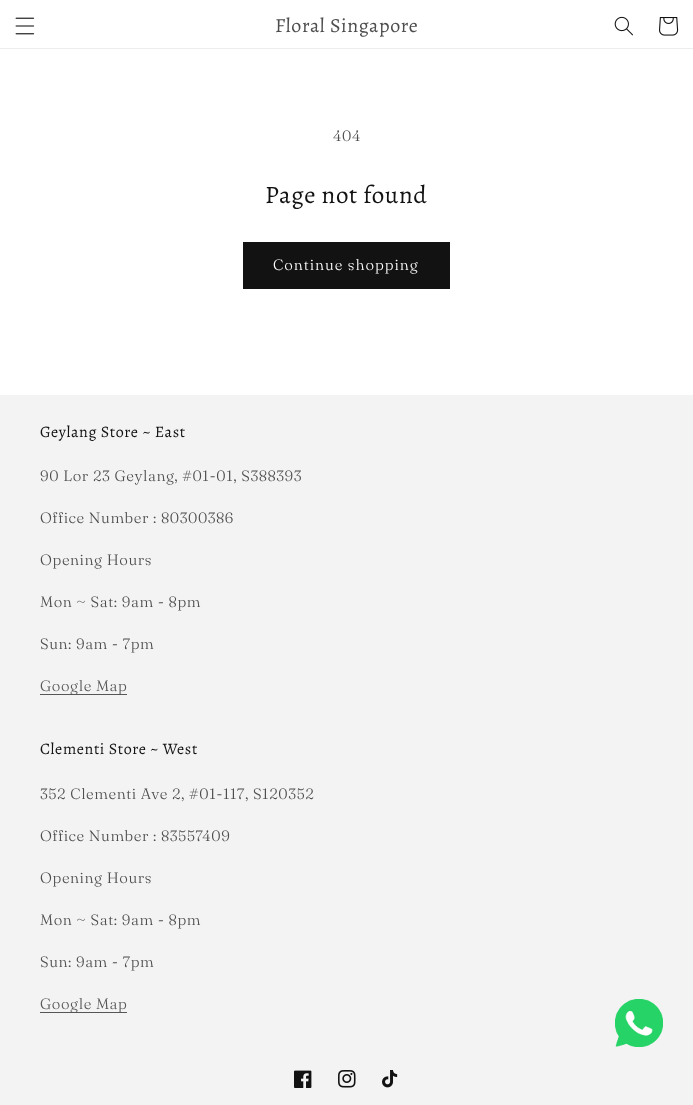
(async () => {
  const canvas = document.querySelector("canvas");
  canvas.width = 693;
  canvas.height = 1105;
  const ctx = canvas.getContext("2d");
  ctx.miterLimit = 4;
  ctx.fontKerning = "normal";
  async function loadImage(src) {
    const img = new Image();
    img.src = src;
    await img.decode();
    return img;
  }

  ctx.fillStyle = "#ffffff";
  ctx.fillRect(0, 0, 693, 1105);
  ctx.fillStyle = "#ececec";
  ctx.fillRect(0, 48, 693, 1);
  ctx.drawImage(await loadImage("img/1.png"), 15, 17, 20, 18);
  ctx.drawImage(await loadImage("img/2.png"), 614, 16, 19, 20);
  ctx.drawImage(await loadImage("img/3.png"), 659, 17, 20, 19);
  for (const [x, y, w, h, color] of [
    [243, 242, 207, 47, "#121212"],
    [0, 395, 693, 710, "#f3f3f3"],
    [40, 694, 87, 1, "#565656"],
    [40, 1012, 87, 1, "#565656"],
  ]) {
    ctx.fillStyle = color;
    ctx.fillRect(x, y, w, h);
  }
  ctx.drawImage(await loadImage("img/4.png"), 294, 1070, 18, 18);
  ctx.drawImage(await loadImage("img/5.png"), 338, 1070, 18, 18);
  ctx.drawImage(await loadImage("img/6.png"), 382, 1070, 16, 18);
  ctx.drawImage(await loadImage("img/7.png"), 615, 999, 48, 48);
  ctx.drawImage(await loadImage("img/8.png"), 615, 999, 48, 48);
  ctx.letterSpacing = "0.6px";
  ctx.font = "20px Alegreya";
  ctx.fillStyle = "#4d4d4d";
  ctx.fillText("Floral Singapore", 275, 32);
  ctx.font = "300 15px Fraunces";
  ctx.fillText("404", 333, 141);
  ctx.font = "25px Alegreya";
  ctx.fillStyle = "#121212";
  ctx.fillText("Page not found", 265, 203);
  ctx.letterSpacing = "1px";
  ctx.font = "300 15px 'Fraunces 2'";
  ctx.fillStyle = "#ffffff";
  ctx.fillText("Continue shopping", 273, 270);
  ctx.letterSpacing = "0.6px";
  ctx.font = "16px Alegreya";
  ctx.fillStyle = "#121212";
  ctx.fillText("Geylang Store ~ East", 40, 437);
  ctx.font = "300 15px 'Fraunces 2'";
  ctx.fillStyle = "#4d4d4d";
  for (const [text, x, y] of [
    ["90 Lor 23 Geylang, #01-01, S388393", 40, 481],
    ["Office Number : 80300386", 40, 523],
    ["Opening Hours", 40, 565],
    ["Mon ~ Sat: 9am - 8pm", 40, 607],
    ["Sun: 9am - 7pm", 40, 649],
  ]) {
    ctx.fillText(text, x, y);
  }
  ctx.fillStyle = "#545454";
  ctx.fillText("Google Map", 40, 691);
  ctx.font = "16px Alegreya";
  ctx.fillStyle = "#121212";
  ctx.fillText("Clementi Store ~ West", 40, 754);
  ctx.font = "300 15px 'Fraunces 2'";
  ctx.fillStyle = "#4d4d4d";
  for (const [text, x, y] of [
    ["352 Clementi Ave 2, #01-117, S120352", 40, 799],
    ["Office Number : 83557409", 40, 841],
    ["Opening Hours", 40, 883],
    ["Mon ~ Sat: 9am - 8pm", 40, 925],
    ["Sun: 9am - 7pm", 40, 967],
  ]) {
    ctx.fillText(text, x, y);
  }
  ctx.fillStyle = "#545454";
  ctx.fillText("Google Map", 40, 1009);
})();
